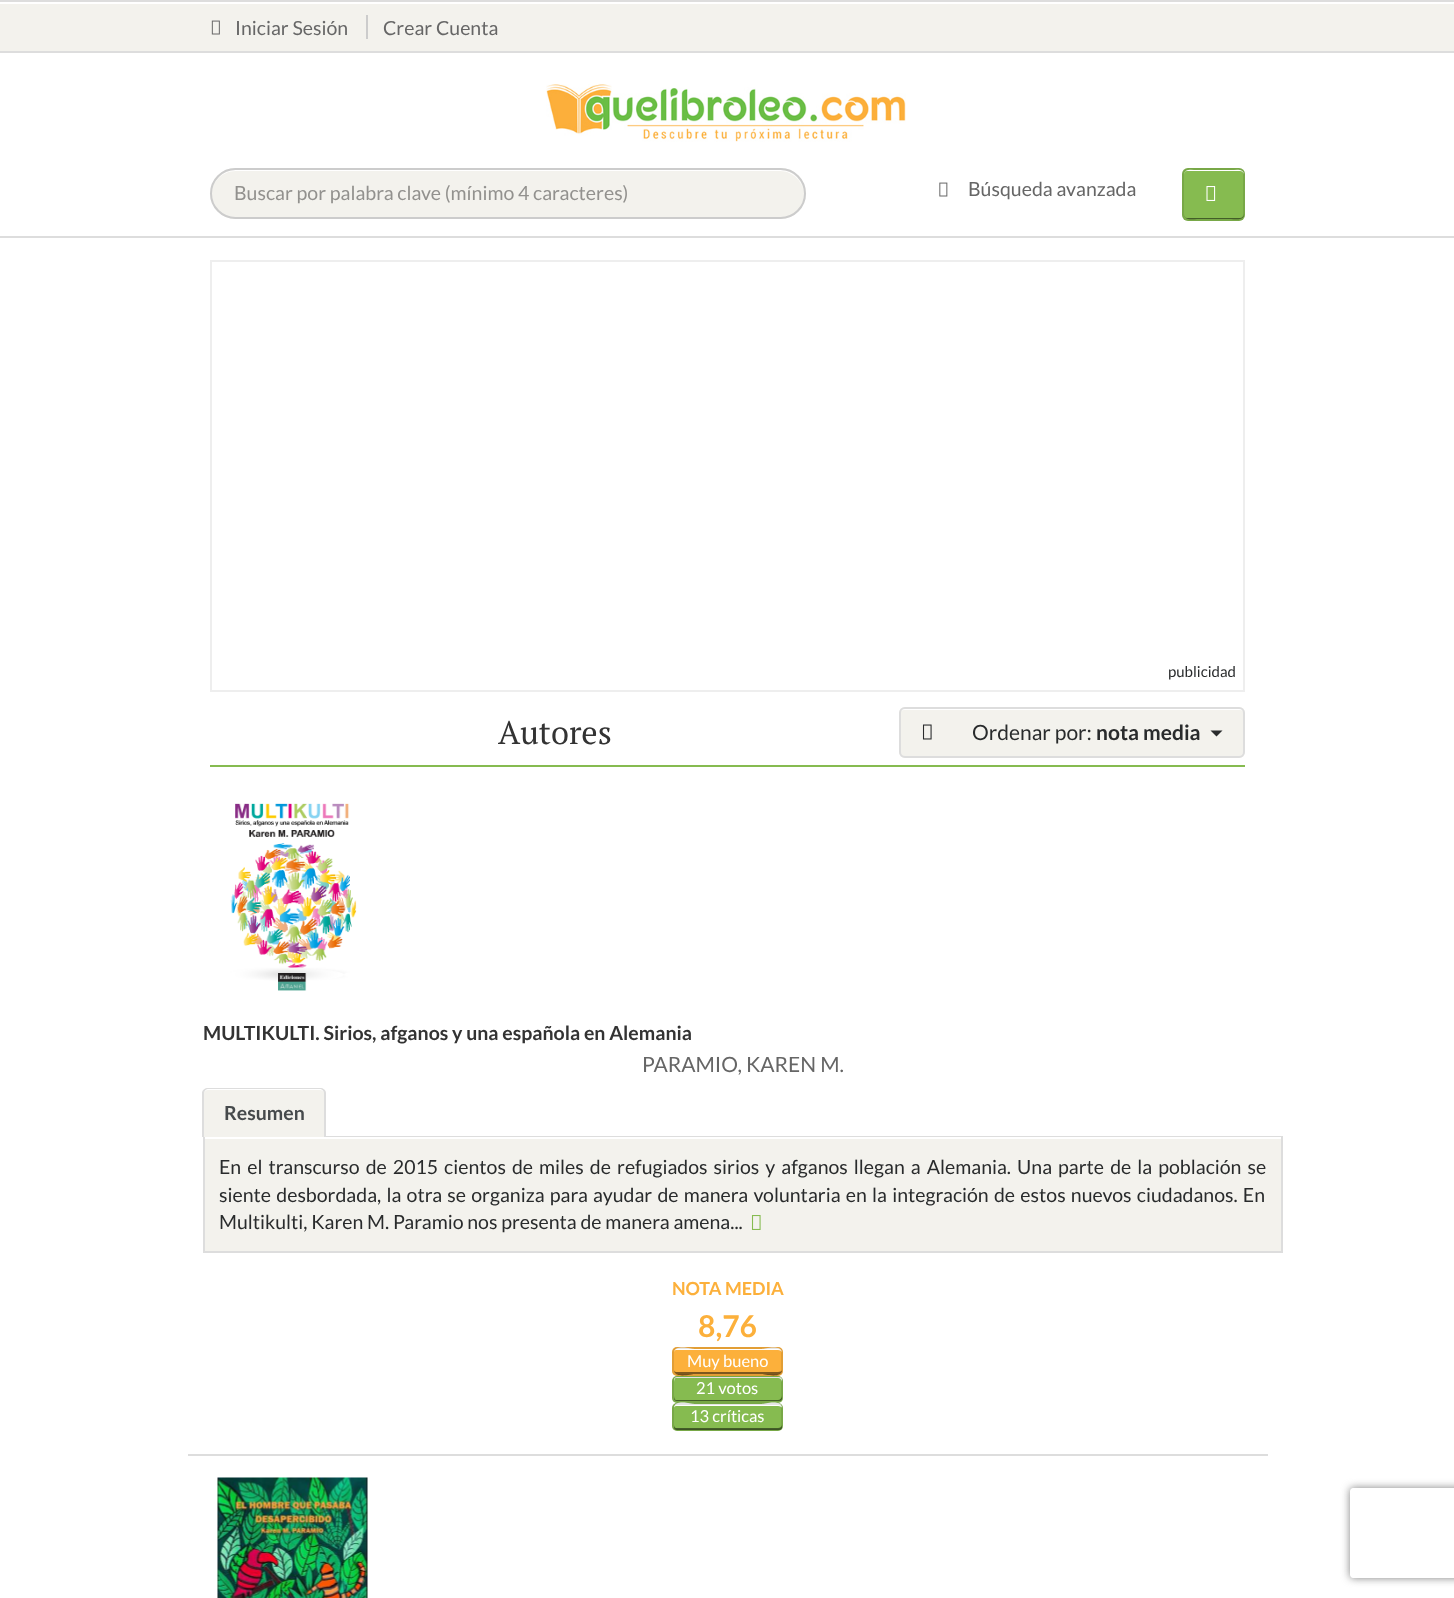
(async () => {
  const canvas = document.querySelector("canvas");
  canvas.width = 1454;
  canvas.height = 1598;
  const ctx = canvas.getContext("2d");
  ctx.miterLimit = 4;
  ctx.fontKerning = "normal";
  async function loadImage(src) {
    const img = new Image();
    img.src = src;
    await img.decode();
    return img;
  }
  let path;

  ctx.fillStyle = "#ffffff";
  ctx.fillRect(0, 0, 1454, 1598);
  for (const [x, y, w, h, color] of [
    [0, 236, 1454, 2, "#dddddd"],
    [0, 4, 1454, 47, "#f3f2ed"],
    [0, 0, 1454, 2, "#dddddd"],
    [0, 51, 1454, 2, "#dddddd"],
    [366, 15, 2, 24, "#cccccc"],
  ]) {
    ctx.fillStyle = color;
    ctx.fillRect(x, y, w, h);
  }
  ctx.drawImage(await loadImage("img/1.png"), 211, 20, 9, 15);
  ctx.drawImage(await loadImage("img/2.png"), 546, 84, 360, 58);
  ctx.fillStyle = "#f3f2ed";
  ctx.beginPath();
  ctx.roundRect(210, 168, 596, 51, 25.5);
  ctx.fill();
  ctx.fillStyle = "#ffffff";
  path = new Path2D("M236 171H780C793 171 804 182 804 195C804 181 793 170 780 170H236C223 170 212 181 212 194C212 182 222 171 236 171Z");
  ctx.fill(path);
  ctx.beginPath();
  ctx.roundRect(211, 169, 594, 49, 24.5);
  ctx.strokeStyle = "#cccccc";
  ctx.lineWidth = 2;
  ctx.stroke();
  ctx.drawImage(await loadImage("img/3.png"), 939, 182, 9, 15);
  ctx.fillStyle = "#86bb50";
  ctx.beginPath();
  ctx.roundRect(1182, 168, 63, 53, 6);
  ctx.fill();
  ctx.fillStyle = "#ffffff";
  path = new Path2D("M1187 171H1240C1242 171 1244 173 1244 175C1244 168 1236 170 1231 170H1197C1192 170 1184 168 1184 175C1184 173 1185 171 1187 171Z");
  ctx.fill(path);
  ctx.fillStyle = "#435e28";
  path = new Path2D("M1184 214C1184 221 1192 219 1197 219H1231C1236 219 1244 221 1244 214C1244 216 1242 218 1240 218H1187C1185 218 1184 216 1184 214Z");
  ctx.fill(path);
  ctx.beginPath();
  ctx.roundRect(1183, 169, 61, 51, 5);
  ctx.strokeStyle = "rgba(0, 0, 0, 0.1)";
  ctx.stroke();
  ctx.drawImage(await loadImage("img/4.png"), 1206, 186, 10, 15);
  ctx.strokeStyle = "#eeeeee";
  ctx.strokeRect(211, 261, 1033, 430);
  ctx.fillStyle = "#86bb50";
  ctx.fillRect(210, 765, 1035, 2);
  ctx.fillStyle = "#f3f2ed";
  ctx.beginPath();
  ctx.roundRect(899, 707, 346, 51, 6);
  ctx.fill();
  ctx.fillStyle = "#ffffff";
  path = new Path2D("M904 710H1240C1242 710 1244 711 1244 713V712C1244 710 1242 708 1240 708H904C902 708 900 710 900 712V713C900 711 902 710 904 710Z");
  ctx.fill(path);
  ctx.beginPath();
  ctx.roundRect(900, 708, 344, 49, 5);
  ctx.strokeStyle = "#dddddd";
  ctx.stroke();
  ctx.drawImage(await loadImage("img/5.png"), 922, 724, 10, 16);
  ctx.fillStyle = "#292b2c";
  path = new Path2D("M1210.5 730.5H1222.5L1216.5 736.5Z");
  ctx.fill(path);
  ctx.fillStyle = "#dddddd";
  ctx.fillRect(188, 1454, 1080, 2);
  ctx.drawImage(await loadImage("img/6.png"), 230, 803, 127, 188);
  ctx.fillRect(326, 1136, 957, 1);
  ctx.fillStyle = "#f3f2ed";
  ctx.beginPath();
  ctx.roundRect(203, 1088, 123, 49, [6, 6, 0, 0]);
  ctx.fill();
  ctx.fillStyle = "#ffffff";
  path = new Path2D("M208 1090H320C322 1090 324 1092 324 1094C324 1084 304 1089 301 1089H227C224 1089 204 1084 204 1094C204 1092 206 1090 208 1090Z");
  ctx.fill(path);
  ctx.fillStyle = "#dddddd";
  path = new Path2D("M208 1088H320C323 1088 326 1090 326 1093V1137H202V1093C202 1090 205 1088 208 1088ZM208 1089H320C322 1089 324 1091 324 1093V1137H204V1093C204 1091 206 1089 208 1089Z");
  ctx.fill(path, "evenodd");
  for (const [x, y, w, h, color] of [
    [205, 1139, 1076, 112, "#f3f2ed"],
    [1281, 1137, 2, 116, "#dddddd"],
    [203, 1251, 1080, 2, "#dddddd"],
    [203, 1137, 2, 116, "#dddddd"],
  ]) {
    ctx.fillStyle = color;
    ctx.fillRect(x, y, w, h);
  }
  ctx.drawImage(await loadImage("img/7.png"), 751, 1215, 10, 15);
  ctx.fillStyle = "#fcb03b";
  ctx.beginPath();
  ctx.roundRect(672, 1347, 111, 29, 5);
  ctx.fill();
  ctx.fillStyle = "#ffffff";
  path = new Path2D("M676 1350H778C780 1350 782 1351 782 1353C782 1344 764 1349 762 1349H694C692 1349 674 1344 674 1353C674 1351 675 1350 676 1350Z");
  ctx.fill(path);
  ctx.fillStyle = "#7e581e";
  path = new Path2D("M674 1370C674 1379 692 1374 694 1374H762C764 1374 782 1379 782 1370C782 1371 780 1372 778 1372H676C675 1372 674 1371 674 1370Z");
  ctx.fill(path);
  ctx.beginPath();
  ctx.roundRect(673, 1348, 109, 27, 4);
  ctx.strokeStyle = "rgba(0, 0, 0, 0.1)";
  ctx.stroke();
  ctx.fillStyle = "#86bb50";
  ctx.beginPath();
  ctx.roundRect(672, 1376, 111, 27, 5);
  ctx.fill();
  ctx.fillStyle = "#ffffff";
  path = new Path2D("M676 1378H778C780 1378 782 1380 782 1382V1380C782 1378 781 1377 779 1377H677C675 1377 674 1378 674 1380V1382C674 1380 675 1378 676 1378Z");
  ctx.fill(path);
  ctx.fillStyle = "#435e28";
  path = new Path2D("M674 1396V1398C674 1400 675 1401 677 1401H779C781 1401 782 1400 782 1398V1396C782 1398 780 1400 778 1400H676C675 1400 674 1398 674 1396Z");
  ctx.fill(path);
  ctx.beginPath();
  ctx.roundRect(673, 1377, 109, 25, 4);
  ctx.stroke();
  ctx.fillStyle = "#86bb50";
  ctx.beginPath();
  ctx.roundRect(672, 1403, 111, 28, 5);
  ctx.fill();
  ctx.fillStyle = "#ffffff";
  path = new Path2D("M676 1406H778C780 1406 782 1407 782 1408C782 1399 764 1404 762 1404H694C692 1404 674 1399 674 1408C674 1407 675 1406 676 1406Z");
  ctx.fill(path);
  ctx.fillStyle = "#435e28";
  path = new Path2D("M674 1425V1427C674 1429 675 1430 677 1430H779C781 1430 782 1429 782 1427V1425C782 1427 780 1428 778 1428H676C675 1428 674 1427 674 1425Z");
  ctx.fill(path);
  ctx.beginPath();
  ctx.roundRect(673, 1404, 109, 26, 4);
  ctx.stroke();
  ctx.drawImage(await loadImage("img/8.png"), 217, 1477, 151, 121);
  ctx.save();
  path = new Path2D("M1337 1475H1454V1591H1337ZM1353 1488H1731C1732.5 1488 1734 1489.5 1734 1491V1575C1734 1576.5 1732.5 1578 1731 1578H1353C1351.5 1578 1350 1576.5 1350 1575V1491C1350 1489.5 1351.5 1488 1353 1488Z");
  ctx.clip(path, "evenodd");
  ctx.fillStyle = "#808080";
  ctx.filter = "blur(4px)";
  ctx.beginPath();
  ctx.roundRect(1350, 1488, 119, 90, 3);
  ctx.fill();
  ctx.filter = "none";
  ctx.restore();
  ctx.font = "19.5px Lato";
  ctx.fillStyle = "#666666";
  ctx.fillText("Iniciar Sesión", 235, 35);
  ctx.fillText("Crear Cuenta", 383, 35);
  ctx.fillStyle = "#92918e";
  ctx.fillText("Buscar por palabra clave (mínimo 4 caracteres)", 234, 200);
  ctx.fillStyle = "#666666";
  ctx.fillText("Búsqueda avanzada", 968, 196);
  ctx.font = "15px Lato";
  ctx.fillStyle = "#292b2c";
  ctx.fillText("publicidad", 1168, 677);
  ctx.font = "32.5px PT Serif";
  ctx.fillStyle = "#333333";
  ctx.fillText("Autores", 498, 744);
  ctx.font = "21px Lato";
  ctx.fillStyle = "#292b2c";
  ctx.fillText("Ordenar por:", 972, 740);
  ctx.font = "bold 21px Lato";
  ctx.fillText("nota media", 1096, 740);
  ctx.font = "bold 19.5px Lato";
  ctx.fillStyle = "#333333";
  ctx.fillText("MULTIKULTI. Sirios, afganos y una española en Alemania", 203, 1040);
  ctx.font = "21px Lato";
  ctx.fillStyle = "#666666";
  ctx.fillText("PARAMIO, KAREN M.", 642, 1072);
  ctx.font = "bold 19.5px Lato";
  ctx.fillStyle = "#464a4c";
  ctx.fillText("Resumen", 224, 1120);
  ctx.wordSpacing = "2.3px";
  ctx.font = "19.5px Lato";
  ctx.fillStyle = "#292b2c";
  ctx.fillText("En el transcurso de 2015 cientos de miles de refugiados sirios y afganos llegan a Alemania. Una parte de la población se", 219, 1174);
  ctx.wordSpacing = "1.5px";
  ctx.fillText("siente desbordada, la otra se organiza para ayudar de manera voluntaria en la integración de estos nuevos ciudadanos. En", 219, 1202);
  ctx.wordSpacing = "0px";
  ctx.fillText("Multikulti, Karen M. Paramio nos presenta de manera amena...", 219, 1229);
  ctx.font = "bold 18px Lato";
  ctx.fillStyle = "#fcb03b";
  ctx.fillText("NOTA MEDIA", 672, 1295);
  ctx.font = "bold 30px Lato";
  ctx.fillText("8,76", 698, 1337);
  ctx.font = "16.5px Lato";
  ctx.fillStyle = "#ffffff";
  for (const [text, x, y] of [
    ["Muy bueno", 687, 1367],
    ["21 votos", 696, 1394],
    ["13 críticas", 690, 1422],
  ]) {
    ctx.fillText(text, x, y);
  }
})();
